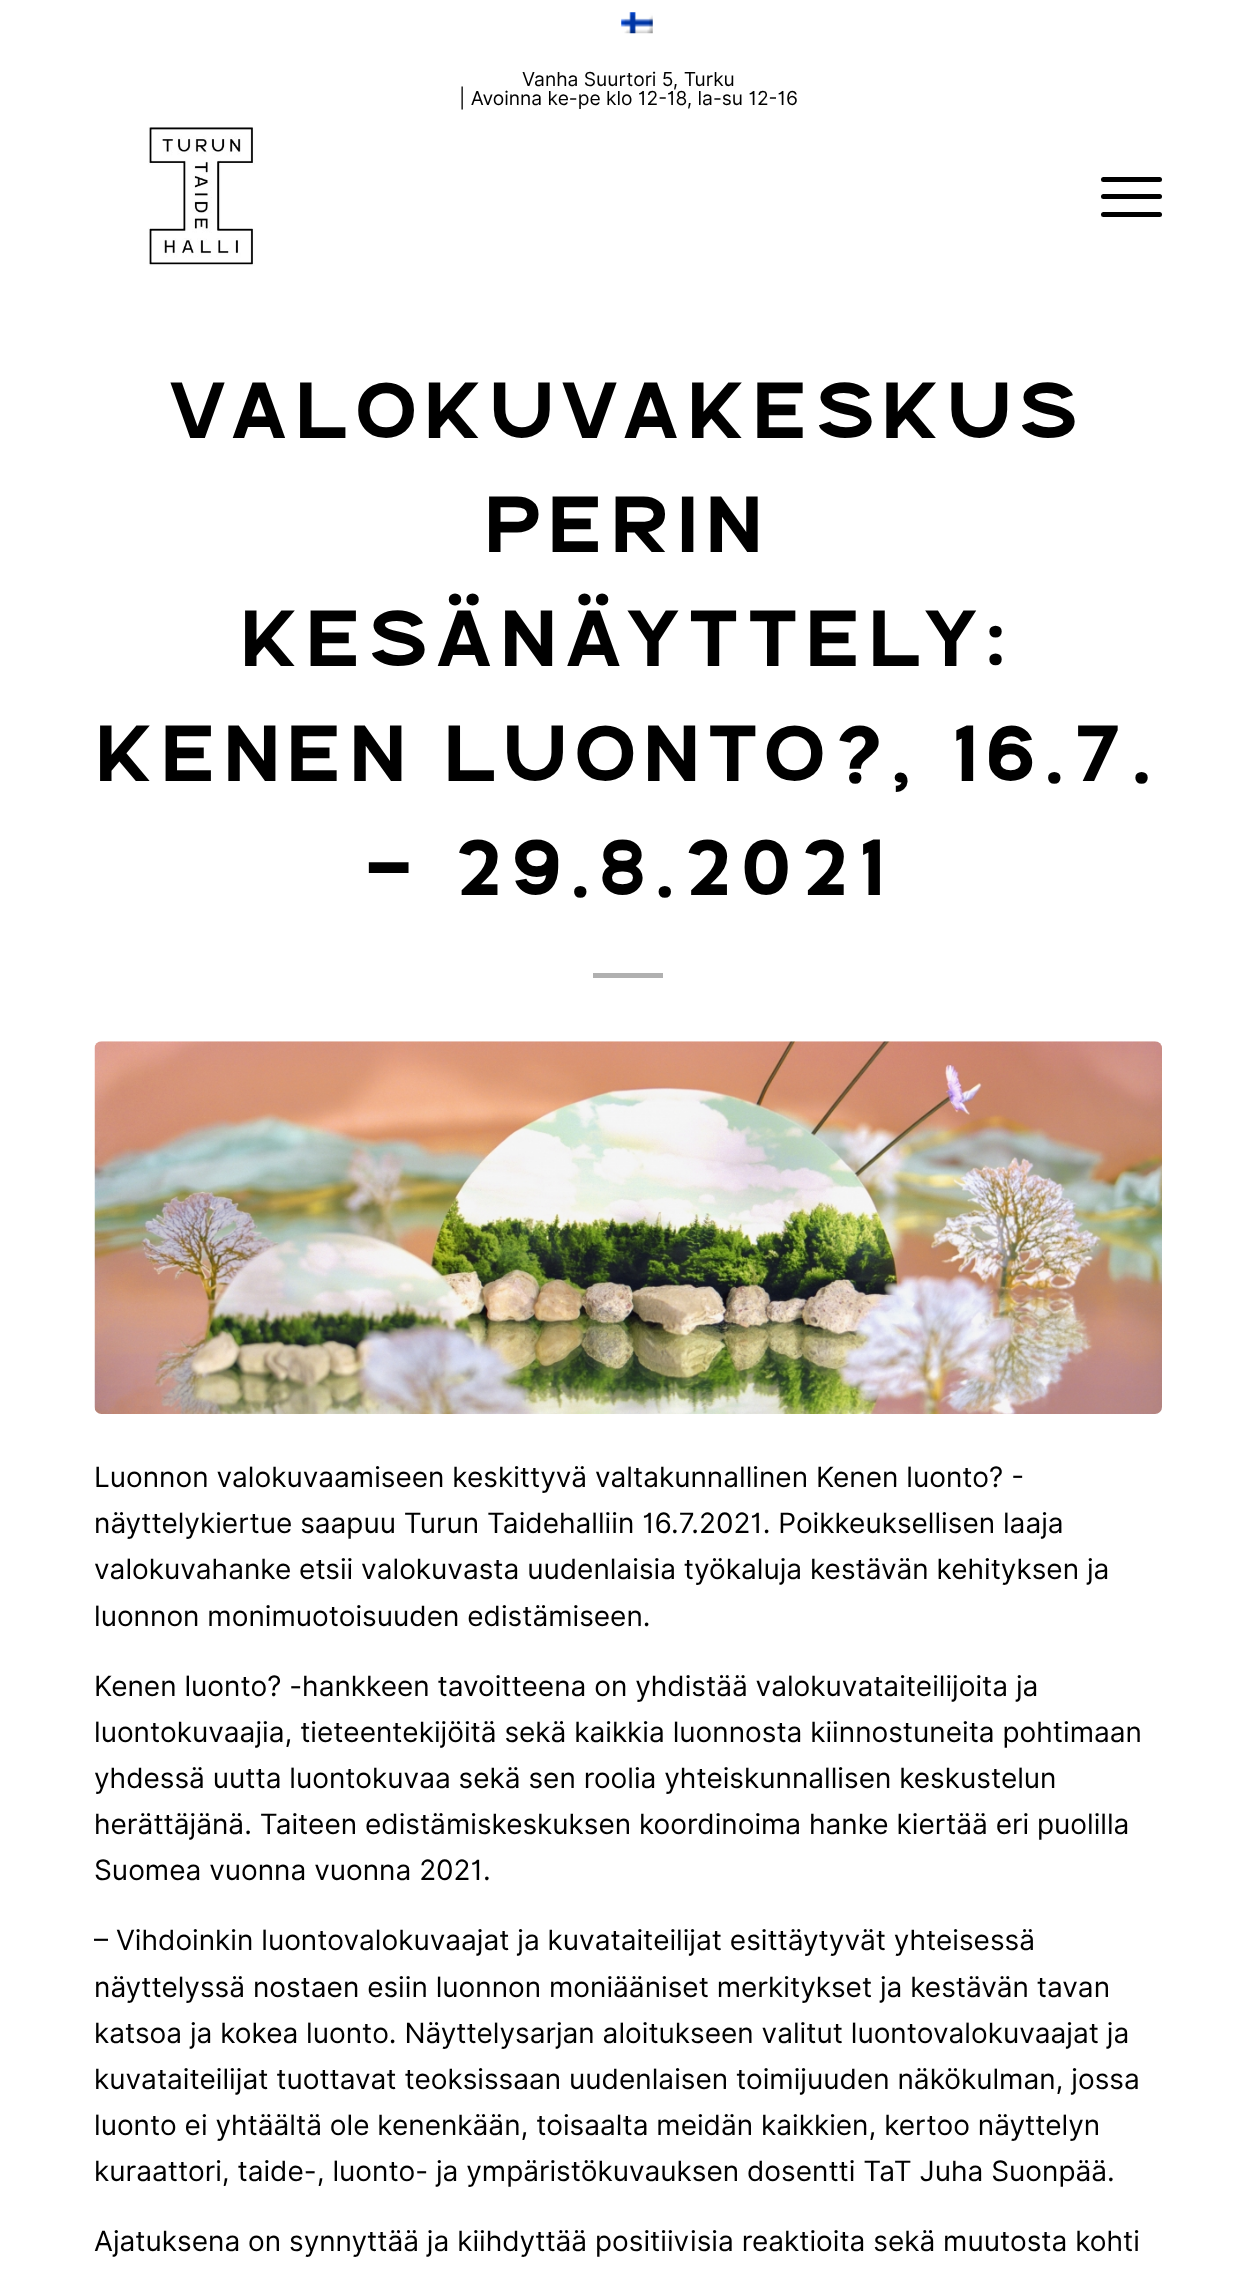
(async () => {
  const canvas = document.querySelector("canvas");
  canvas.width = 1255;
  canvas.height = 2275;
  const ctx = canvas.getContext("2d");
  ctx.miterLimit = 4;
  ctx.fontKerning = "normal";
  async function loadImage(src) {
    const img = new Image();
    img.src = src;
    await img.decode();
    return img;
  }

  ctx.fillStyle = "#ffffff";
  ctx.fillRect(0, 0, 1255, 2275);
  ctx.drawImage(await loadImage("img/1.png"), 621, 12, 32, 22);
  ctx.drawImage(await loadImage("img/2.png"), 148, 127, 107, 139);
  ctx.fillStyle = "#000000";
  ctx.beginPath();
  ctx.roundRect(1101, 194, 61, 5, 2.5);
  ctx.fill();
  ctx.beginPath();
  ctx.roundRect(1101, 177, 61, 5, 2.5);
  ctx.fill();
  ctx.beginPath();
  ctx.roundRect(1101, 212, 61, 5, 2.5);
  ctx.fill();
  ctx.fillStyle = "#b0b0b0";
  ctx.fillRect(593, 973, 70, 5);
  ctx.drawImage(await loadImage("img/3.png"), 94, 1041, 1068, 373);
  ctx.font = "19.25px Inter";
  ctx.fillStyle = "#000000";
  ctx.fillText("Vanha Suurtori 5, Turku", 522, 86);
  ctx.fillText("| Avoinna ke-pe klo 12-18, la-su 12-16", 459, 105);
  ctx.letterSpacing = "9.7px";
  ctx.font = "88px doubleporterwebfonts";
  for (const [text, x, y] of [
    ["valokuvakeskus", 170, 438],
    ["perin", 486, 552],
    ["kesänäyttely:", 242, 666],
    ["kenen luonto?, 16.7.", 97, 781],
    ["– 29.8.2021", 364, 895],
  ]) {
    ctx.fillText(text, x, y);
  }
  ctx.letterSpacing = "0px";
  ctx.font = "28px Inter";
  for (const [text, x, y] of [
    ["Luonnon valokuvaamiseen keskittyvä valtakunnallinen Kenen luonto? -", 94, 1487],
    ["näyttelykiertue saapuu Turun Taidehalliin 16.7.2021. Poikkeuksellisen laaja", 94, 1533],
    ["valokuvahanke etsii valokuvasta uudenlaisia työkaluja kestävän kehityksen ja", 94, 1579],
    ["luonnon monimuotoisuuden edistämiseen.", 94, 1626],
    ["Kenen luonto? -hankkeen tavoitteena on yhdistää valokuvataiteilijoita ja", 94, 1696],
    ["luontokuvaajia, tieteentekijöitä sekä kaikkia luonnosta kiinnostuneita pohtimaan", 94, 1742],
    ["yhdessä uutta luontokuvaa sekä sen roolia yhteiskunnallisen keskustelun", 94, 1788],
    ["herättäjänä. Taiteen edistämiskeskuksen koordinoima hanke kiertää eri puolilla", 94, 1834],
    ["Suomea vuonna vuonna 2021.", 94, 1880],
    ["– Vihdoinkin luontovalokuvaajat ja kuvataiteilijat esittäytyvät yhteisessä", 94, 1950],
    ["näyttelyssä nostaen esiin luonnon moniääniset merkitykset ja kestävän tavan", 94, 1997],
    ["katsoa ja kokea luonto. Näyttelysarjan aloitukseen valitut luontovalokuvaajat ja", 94, 2043],
    ["kuvataiteilijat tuottavat teoksissaan uudenlaisen toimijuuden näkökulman, jossa", 94, 2089],
    ["luonto ei yhtäältä ole kenenkään, toisaalta meidän kaikkien, kertoo näyttelyn", 94, 2135],
    ["kuraattori, taide-, luonto- ja ympäristökuvauksen dosentti TaT Juha Suonpää.", 94, 2181],
    ["Ajatuksena on synnyttää ja kiihdyttää positiivisia reaktioita sekä muutosta kohti", 94, 2251],
  ]) {
    ctx.fillText(text, x, y);
  }
})();
